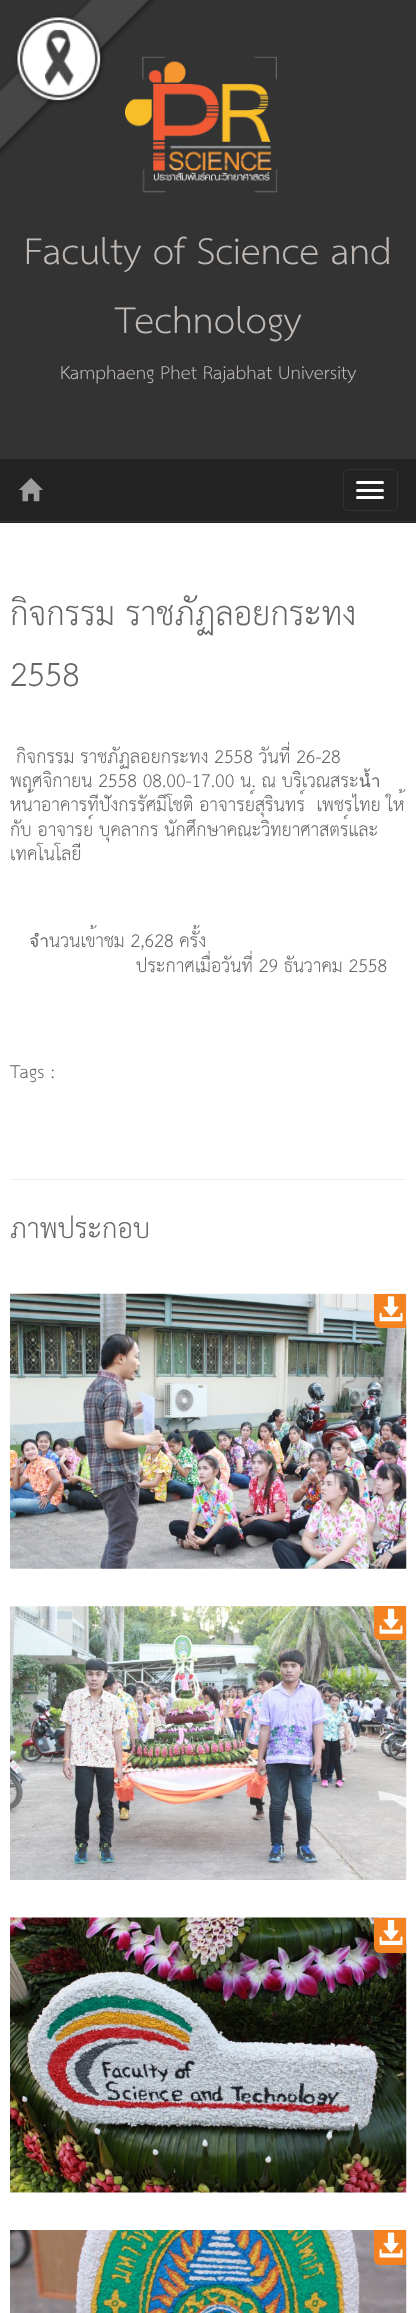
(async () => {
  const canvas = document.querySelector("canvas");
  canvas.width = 416;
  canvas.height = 2313;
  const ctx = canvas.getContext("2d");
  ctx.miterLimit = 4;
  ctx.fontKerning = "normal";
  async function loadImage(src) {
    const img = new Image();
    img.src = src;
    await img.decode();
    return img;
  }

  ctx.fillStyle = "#232323";
  ctx.fillRect(0, 0, 416, 2313);
  ctx.fillStyle = "#333333";
  ctx.fillRect(0, 0, 416, 459);
  ctx.drawImage(await loadImage("img/2.png"), 125, 56, 153, 137);
  ctx.drawImage(await loadImage("img/1.png"), 0, 0, 155, 155);
  ctx.fillRect(0, 521, 416, 1);
  ctx.drawImage(await loadImage("img/3.png"), 19, 478, 24, 24);
  ctx.beginPath();
  ctx.roundRect(343.5, 469.5, 54, 41, 4.5);
  ctx.strokeStyle = "#333333";
  ctx.stroke();
  ctx.fillStyle = "#ffffff";
  ctx.beginPath();
  ctx.roundRect(356, 481, 28, 3, 1.5);
  ctx.fill();
  ctx.beginPath();
  ctx.roundRect(356, 489, 28, 3, 1.5);
  ctx.fill();
  ctx.beginPath();
  ctx.roundRect(356, 496, 28, 3, 1.5);
  ctx.fill();
  ctx.fillRect(0, 523, 416, 1790);
  ctx.fillStyle = "#eeeeee";
  ctx.fillRect(10, 1179, 396, 1);
  ctx.drawImage(await loadImage("img/4.png"), 10, 1293, 397, 276);
  ctx.fillStyle = "#f58220";
  ctx.beginPath();
  ctx.roundRect(374, 1294, 32, 34, [0, 0, 0, 6]);
  ctx.fill();
  ctx.drawImage(await loadImage("img/5.png"), 379, 1296, 24, 26);
  ctx.drawImage(await loadImage("img/6.png"), 10, 1606, 397, 274);
  ctx.beginPath();
  ctx.roundRect(374, 1606, 32, 34, [0, 0, 0, 6]);
  ctx.fill();
  ctx.drawImage(await loadImage("img/7.png"), 379, 1608, 24, 26);
  ctx.drawImage(await loadImage("img/8.png"), 10, 1917, 397, 276);
  ctx.beginPath();
  ctx.roundRect(374, 1918, 32, 35, [0, 0, 0, 6]);
  ctx.fill();
  ctx.drawImage(await loadImage("img/9.png"), 379, 1920, 24, 25);
  ctx.drawImage(await loadImage("img/10.png"), 10, 2230, 397, 83);
  ctx.beginPath();
  ctx.roundRect(374, 2230, 32, 35, [0, 0, 0, 6]);
  ctx.fill();
  ctx.drawImage(await loadImage("img/11.png"), 379, 2232, 24, 26);
  ctx.font = "35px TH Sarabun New";
  ctx.fillStyle = "#c0bab6";
  ctx.fillText("Faculty of Science and", 24, 264);
  ctx.fillText("Technology", 115, 333);
  ctx.font = "17.5px TH Sarabun New";
  ctx.fillText("Kamphaeng Phet Rajabhat University", 60, 379);
  ctx.font = "31.5px TH Sarabun New";
  ctx.fillStyle = "#666666";
  ctx.fillText("กิจกรรม ราชภัฏลอยกระทง", 10, 625);
  ctx.fillText("2558", 10, 686);
  ctx.font = "17.5px TH Sarabun New";
  for (const [text, x, y] of [
    ["กิจกรรม ราชภัฏลอยกระทง 2558 วันที่ 26-28", 16, 763],
    ["พฤศจิกายน 2558 08.00-17.00 น. ณ บริเวณสระน้ำ", 10, 787],
    ["หน้าอาคารทีปังกรรัศมีโชติ อาจารย์สุรินทร์  เพชรไทย ให้", 10, 811],
    ["กับ อาจารย์ บุคลากร นักศึกษาคณะวิทยาศาสตร์และ", 10, 836],
    ["เทคโนโลยี", 10, 860],
    ["จำนวนเข้าชม 2,628 ครั้ง", 29, 947],
    ["ประกาศเมื่อวันที่ 29 ธันวาคม 2558", 136, 972],
    ["Tags :", 10, 1078],
  ]) {
    ctx.fillText(text, x, y);
  }
  ctx.font = "26.25px TH Sarabun New";
  ctx.fillText("ภาพประกอบ", 10, 1238);
})();
